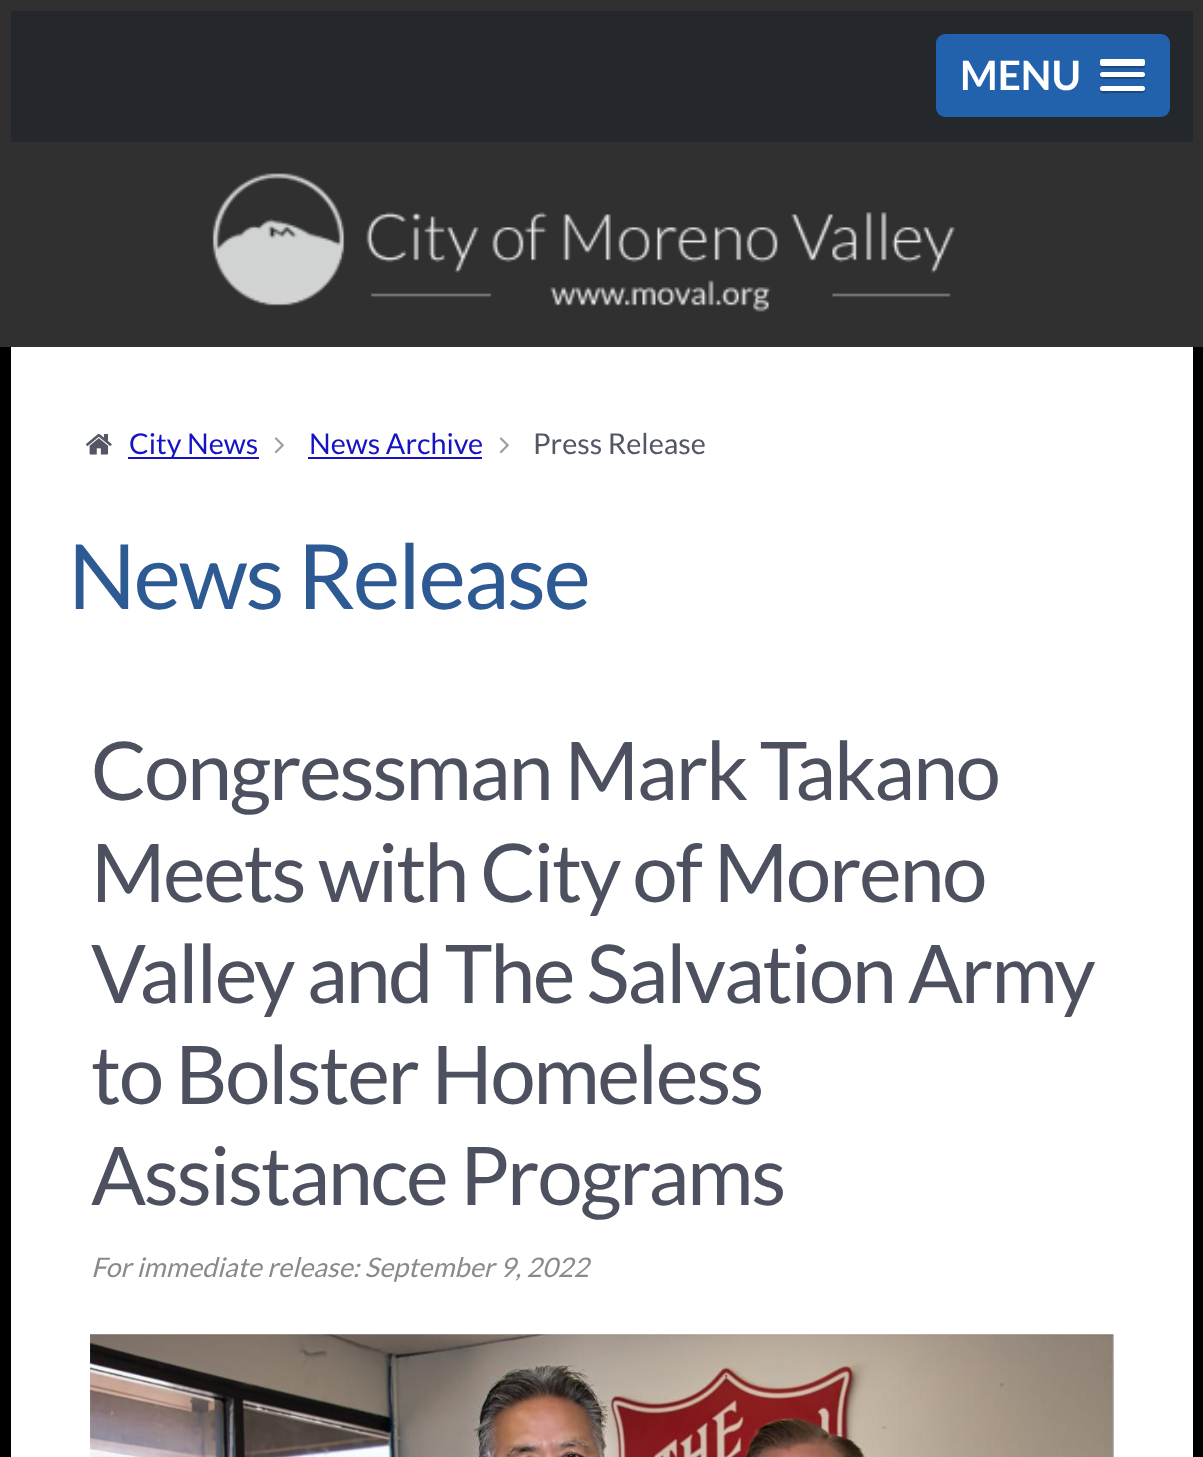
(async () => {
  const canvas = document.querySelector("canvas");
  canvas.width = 1203;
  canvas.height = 1457;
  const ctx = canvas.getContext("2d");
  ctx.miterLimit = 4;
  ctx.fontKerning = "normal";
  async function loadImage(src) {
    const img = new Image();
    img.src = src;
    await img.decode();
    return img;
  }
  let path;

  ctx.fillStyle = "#000000";
  ctx.fillRect(0, 0, 1203, 1457);
  ctx.fillStyle = "#303030";
  ctx.fillRect(0, 0, 1203, 347);
  ctx.fillStyle = "#24282d";
  ctx.fillRect(11, 11, 1182, 131);
  ctx.fillStyle = "#2261ac";
  ctx.beginPath();
  ctx.roundRect(936, 34, 234, 83, 9);
  ctx.fill();
  ctx.fillStyle = "#1a4981";
  path = new Path2D("M1100 62V64C1100 70 1104 68 1109 68H1136C1142 68 1145 70 1145 64C1145 65 1144 65 1143 65H1102C1101 65 1100 64 1100 63Z");
  ctx.fill(path);
  ctx.fillStyle = "#ffffff";
  ctx.beginPath();
  ctx.roundRect(1100, 59, 45, 7, 2);
  ctx.fill();
  ctx.fillStyle = "#1a4981";
  path = new Path2D("M1100 75C1097 80 1109 79 1109 79H1136C1137 79 1147 80 1145 76H1143H1102C1102 76 1101 76 1100 75Z");
  ctx.fill(path);
  ctx.fillStyle = "#ffffff";
  ctx.beginPath();
  ctx.roundRect(1100, 72, 45, 5, 2.5);
  ctx.fill();
  ctx.fillStyle = "#1a4981";
  path = new Path2D("M1101 89L1100 91C1101 95 1108 93 1109 93H1136C1136 93 1148 94 1145 89C1143 91 1114 90 1109 90C1109 90 1102 91 1101 89Z");
  ctx.fill(path);
  ctx.fillStyle = "#ffffff";
  ctx.beginPath();
  ctx.roundRect(1100, 86, 45, 5, 2.5);
  ctx.fill();
  ctx.drawImage(await loadImage("img/1.png"), 212, 173, 743, 139);
  ctx.fillRect(11, 347, 1182, 1110);
  ctx.drawImage(await loadImage("img/2.png"), 86, 434, 26, 21);
  ctx.fillStyle = "#1513c3";
  ctx.fillRect(128, 457, 131, 2);
  ctx.drawImage(await loadImage("img/3.png"), 274, 437, 10, 17);
  ctx.fillRect(308, 457, 174, 2);
  ctx.drawImage(await loadImage("img/3.png"), 499, 437, 10, 17);
  ctx.drawImage(await loadImage("img/4.png"), 90, 1334, 1024, 123);
  ctx.font = "bold 40.5px Lato";
  ctx.fillStyle = "#ffffff";
  ctx.fillText("MENU", 960, 90);
  ctx.font = "28.75px Lato";
  ctx.fillStyle = "#1513c3";
  ctx.fillText("City News", 129, 454);
  ctx.fillText("News Archive", 309, 454);
  ctx.fillStyle = "#535664";
  ctx.fillText("Press Release", 533, 454);
  ctx.letterSpacing = "-2.25px";
  ctx.font = "90px Lato";
  ctx.fillStyle = "#2e5a93";
  ctx.fillText("News Release", 68, 609);
  ctx.font = "81px Lato";
  ctx.fillStyle = "#4d515f";
  for (const [text, x, y] of [
    ["Congressman Mark Takano", 91, 800],
    ["Meets with City of Moreno", 91, 902],
    ["Valley and The Salvation Army", 91, 1003],
    ["to Bolster Homeless", 91, 1104],
    ["Assistance Programs", 91, 1205],
  ]) {
    ctx.fillText(text, x, y);
  }
  ctx.letterSpacing = "0px";
  ctx.font = "italic 27px Lato";
  ctx.fillStyle = "#8b8989";
  ctx.fillText("For immediate release: September 9, 2022", 91, 1277);
})();
